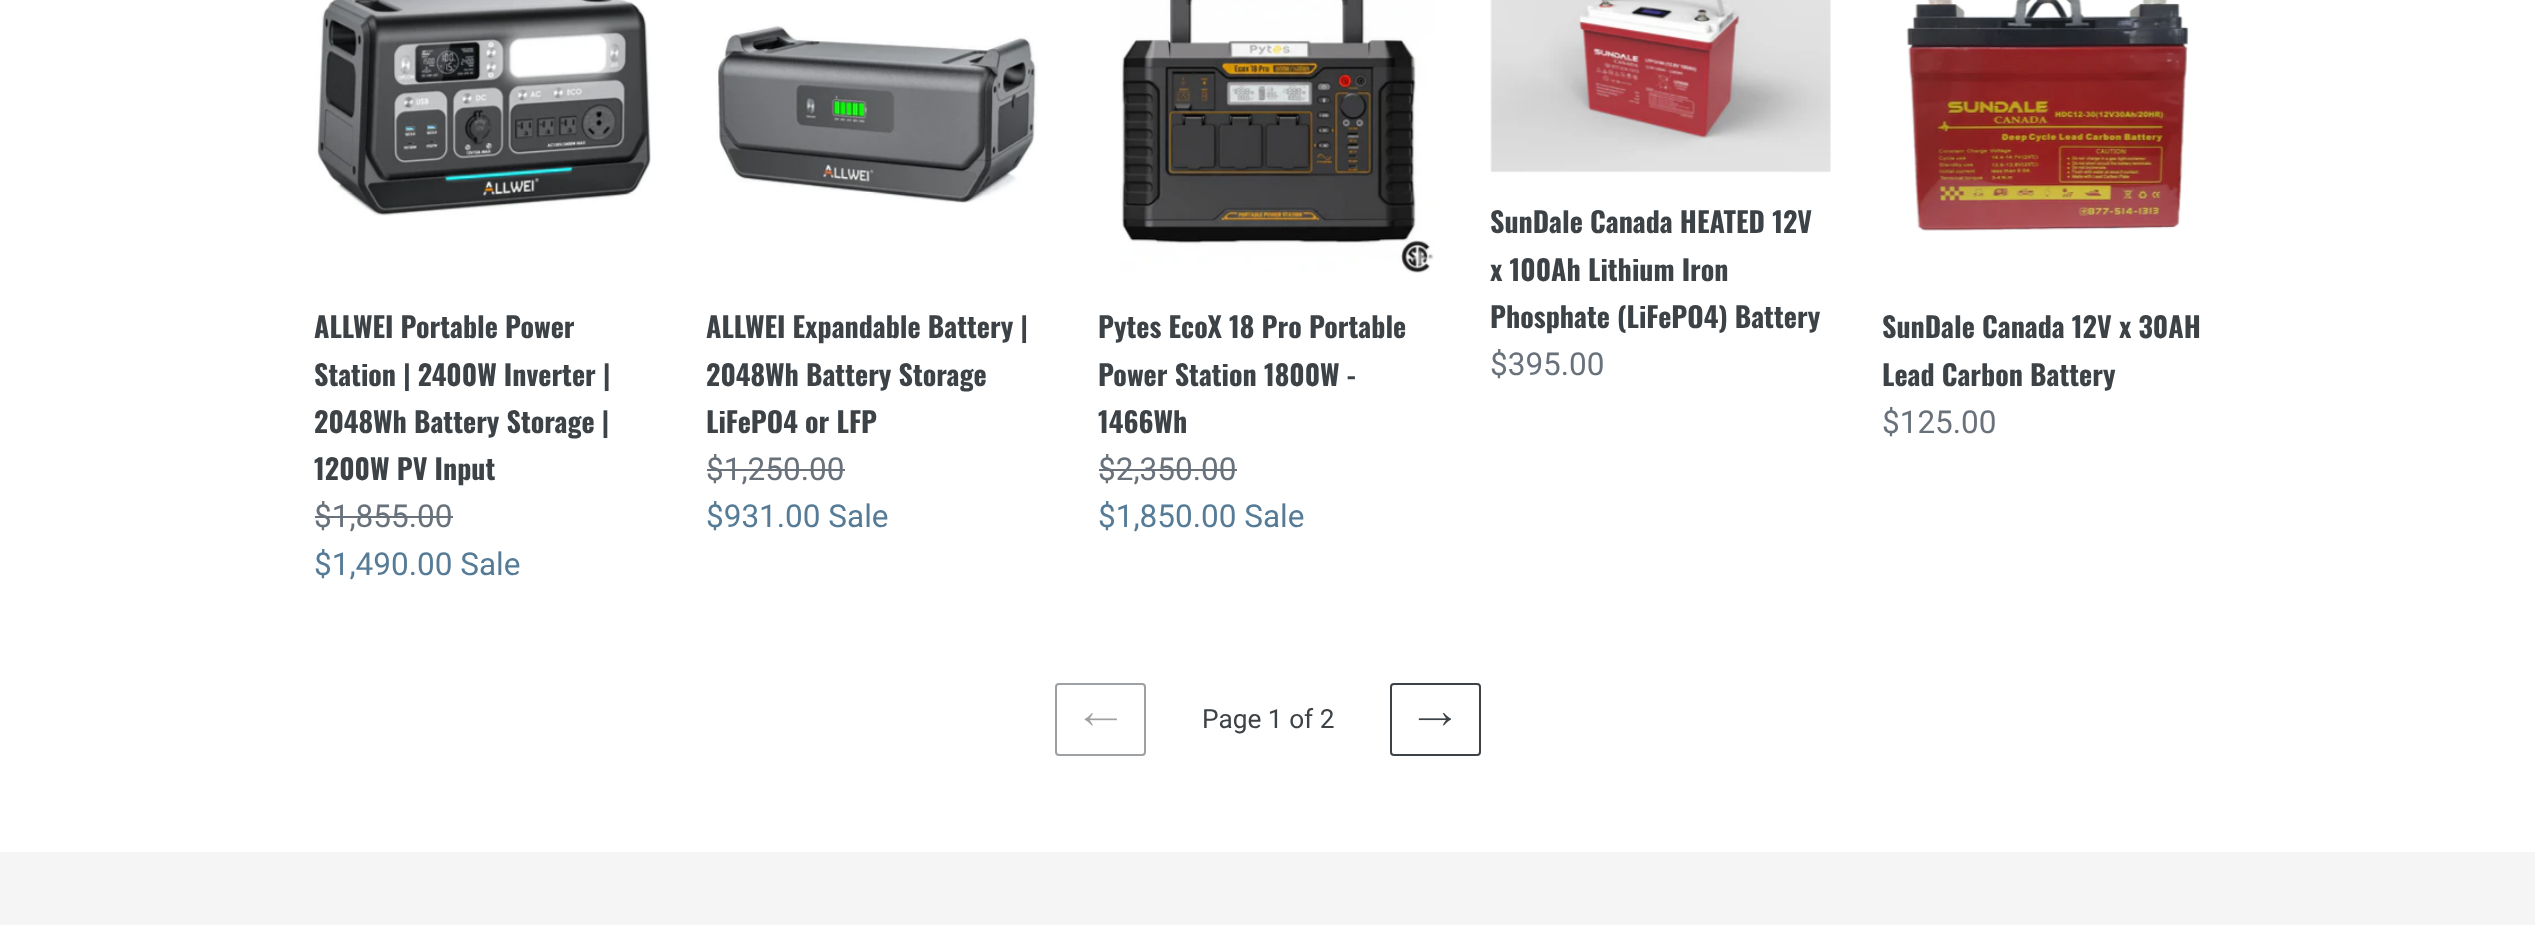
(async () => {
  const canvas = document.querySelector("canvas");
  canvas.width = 2535;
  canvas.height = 925;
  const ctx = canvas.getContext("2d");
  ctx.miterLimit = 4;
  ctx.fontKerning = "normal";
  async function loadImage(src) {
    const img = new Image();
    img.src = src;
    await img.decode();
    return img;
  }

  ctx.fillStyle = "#ffffff";
  ctx.fillRect(0, 0, 2535, 925);
  ctx.drawImage(await loadImage("img/1.png"), 1490, 0, 341, 173);
  ctx.drawImage(await loadImage("img/2.png"), 315, 0, 336, 216);
  ctx.fillStyle = "#69727b";
  ctx.fillRect(315, 516, 138, 2);
  ctx.drawImage(await loadImage("img/3.png"), 716, 25, 322, 178);
  ctx.fillRect(707, 469, 138, 2);
  ctx.drawImage(await loadImage("img/4.png"), 1120, 0, 314, 273);
  ctx.fillRect(1099, 469, 138, 2);
  ctx.drawImage(await loadImage("img/5.png"), 1906, 0, 283, 231);
  ctx.beginPath();
  ctx.roundRect(1056, 684, 89, 71, 3);
  ctx.strokeStyle = "#9ea1a3";
  ctx.lineWidth = 2;
  ctx.stroke();
  ctx.drawImage(await loadImage("img/6.png"), 1084, 713, 33, 13);
  ctx.beginPath();
  ctx.roundRect(1391, 684, 89, 71, 3);
  ctx.strokeStyle = "#3d4246";
  ctx.stroke();
  ctx.drawImage(await loadImage("img/7.png"), 1418, 713, 34, 13);
  ctx.fillStyle = "#f5f5f5";
  ctx.fillRect(0, 852, 2535, 73);
  ctx.font = "bold 28px Oswald";
  ctx.fillStyle = "#3d4246";
  for (const [text, x, y] of [
    ["SunDale Canada HEATED 12V", 1490, 233],
    ["x 100Ah Lithium Iron", 1490, 281],
    ["Phosphate (LiFePO4) Battery", 1490, 328],
  ]) {
    ctx.fillText(text, x, y);
  }
  ctx.font = "31.5px Roboto";
  ctx.fillStyle = "#69727b";
  ctx.fillText("$395.00", 1490, 375);
  ctx.font = "bold 28px Oswald";
  ctx.fillStyle = "#3d4246";
  for (const [text, x, y] of [
    ["ALLWEI Portable Power", 314, 338],
    ["Station | 2400W Inverter |", 314, 386],
    ["2048Wh Battery Storage |", 314, 433],
    ["1200W PV Input", 314, 480],
  ]) {
    ctx.fillText(text, x, y);
  }
  ctx.font = "31.5px Roboto";
  ctx.fillStyle = "#69727b";
  ctx.fillText("$1,855.00", 314, 527);
  ctx.fillStyle = "#557b97";
  ctx.fillText("$1,490.00 Sale", 314, 575);
  ctx.font = "bold 28px Oswald";
  ctx.fillStyle = "#3d4246";
  for (const [text, x, y] of [
    ["ALLWEI Expandable Battery |", 706, 338],
    ["2048Wh Battery Storage", 706, 386],
    ["LiFePO4 or LFP", 706, 433],
  ]) {
    ctx.fillText(text, x, y);
  }
  ctx.font = "31.5px Roboto";
  ctx.fillStyle = "#69727b";
  ctx.fillText("$1,250.00", 706, 480);
  ctx.fillStyle = "#557b97";
  ctx.fillText("$931.00 Sale", 706, 527);
  ctx.font = "bold 28px Oswald";
  ctx.fillStyle = "#3d4246";
  for (const [text, x, y] of [
    ["Pytes EcoX 18 Pro Portable", 1098, 338],
    ["Power Station 1800W -", 1098, 386],
    ["1466Wh", 1098, 433],
  ]) {
    ctx.fillText(text, x, y);
  }
  ctx.font = "31.5px Roboto";
  ctx.fillStyle = "#69727b";
  ctx.fillText("$2,350.00", 1098, 480);
  ctx.fillStyle = "#557b97";
  ctx.fillText("$1,850.00 Sale", 1098, 527);
  ctx.font = "bold 28px Oswald";
  ctx.fillStyle = "#3d4246";
  ctx.fillText("SunDale Canada 12V x 30AH", 1882, 338);
  ctx.fillText("Lead Carbon Battery", 1882, 386);
  ctx.font = "31.5px Roboto";
  ctx.fillStyle = "#69727b";
  ctx.fillText("$125.00", 1882, 433);
  ctx.font = "26.25px Roboto";
  ctx.fillStyle = "#3d4246";
  ctx.fillText("Page 1 of 2", 1202, 728);
})();
